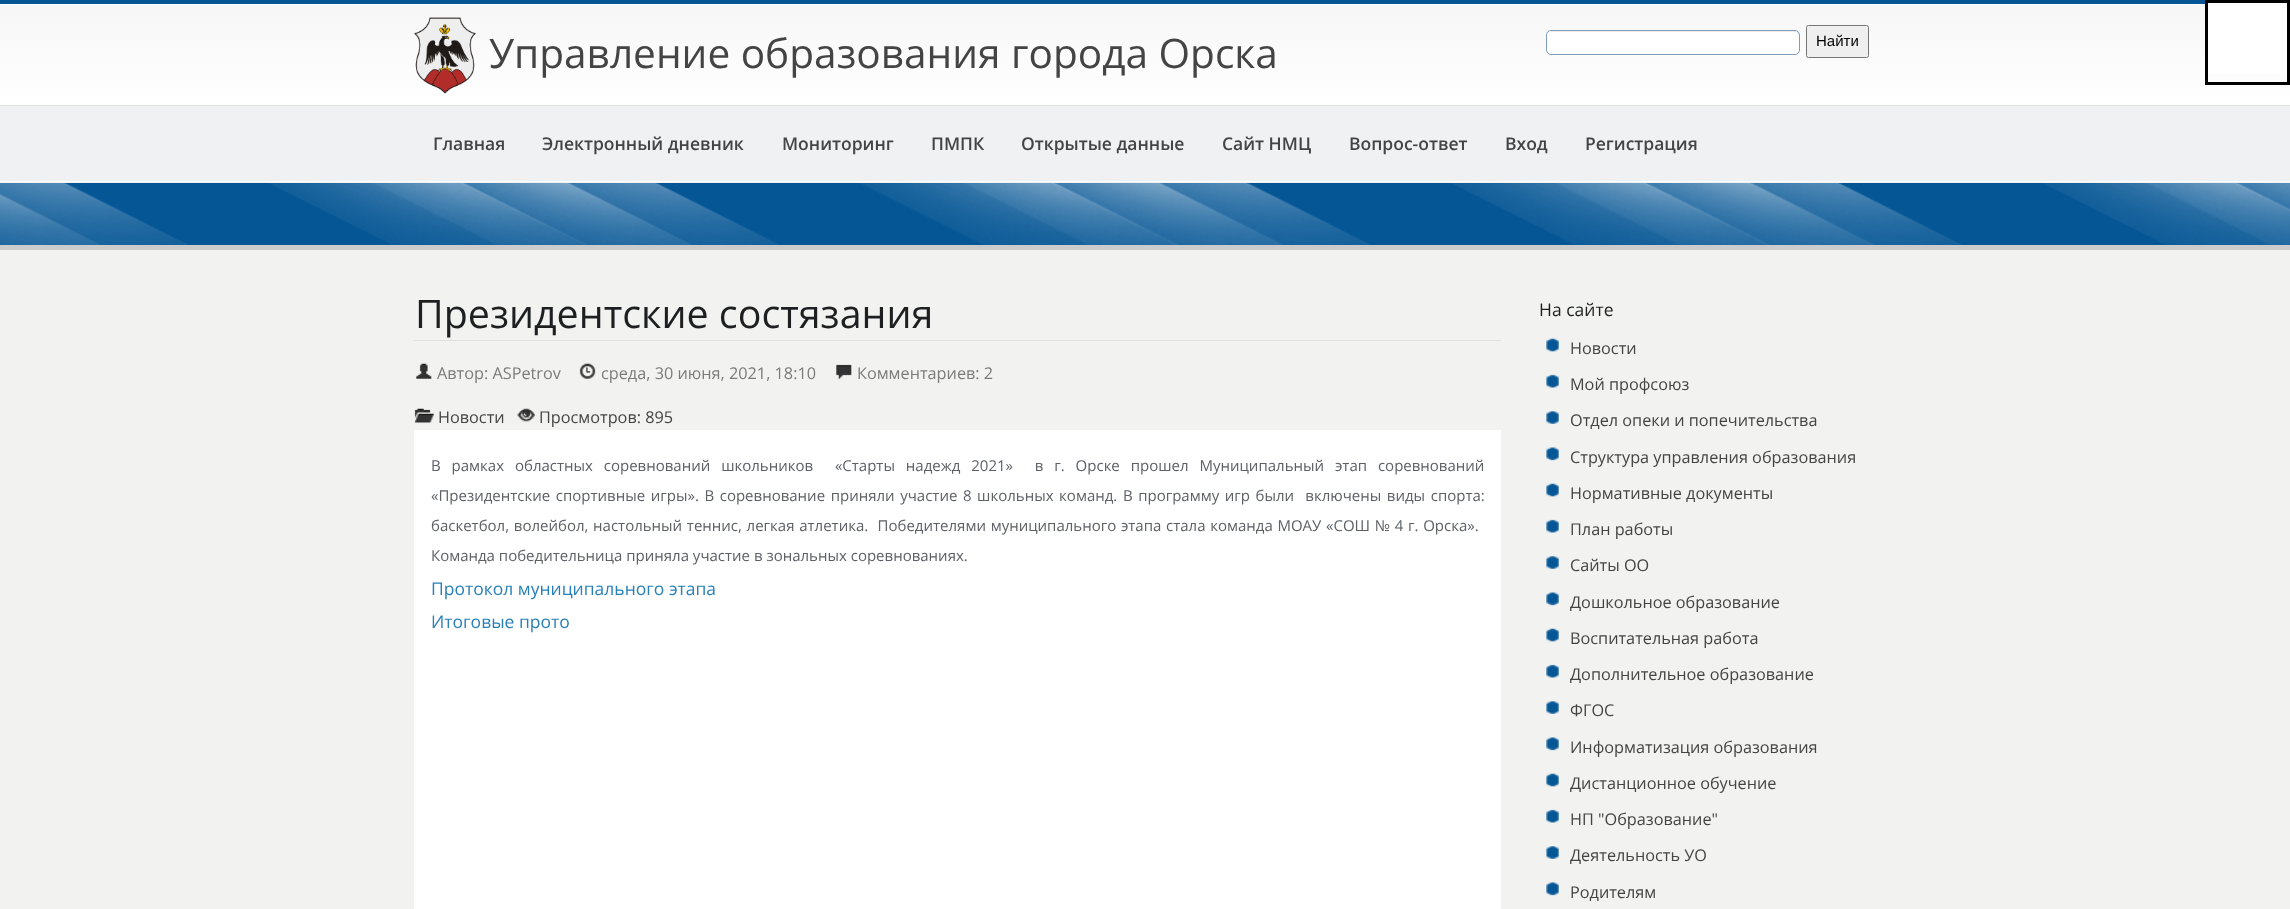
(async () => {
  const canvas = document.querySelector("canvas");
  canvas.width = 2290;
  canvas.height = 909;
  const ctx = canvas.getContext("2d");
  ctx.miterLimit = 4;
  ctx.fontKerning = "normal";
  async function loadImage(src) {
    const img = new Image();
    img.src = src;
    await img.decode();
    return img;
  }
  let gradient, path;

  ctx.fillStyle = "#f2f2f1";
  ctx.fillRect(0, 0, 2290, 909);
  ctx.fillStyle = "#055695";
  ctx.fillRect(0, 0, 2205, 4);
  gradient = ctx.createLinearGradient(1145, 5, 1145, 105);
  gradient.addColorStop(0.01, "#f7f7f7");
  gradient.addColorStop(1, "#ffffff");
  ctx.fillStyle = gradient;
  ctx.fillRect(0, 5, 2290, 100);
  ctx.fillStyle = "#ffffff";
  ctx.fillRect(2208, 3, 79, 71);
  ctx.strokeStyle = "#000000";
  ctx.lineWidth = 3;
  ctx.strokeRect(2206.5, 1.5, 82, 82);
  gradient = ctx.createLinearGradient(1145, -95, 1145, 5);
  gradient.addColorStop(0.01, "#f7f7f7");
  gradient.addColorStop(1, "#ffffff");
  ctx.fillStyle = gradient;
  ctx.fillRect(0, 4, 2205, 1);
  ctx.drawImage(await loadImage("img/1.png"), 413, 17, 64, 77);
  ctx.fillStyle = "#ffffff";
  ctx.beginPath();
  ctx.roundRect(1546, 30, 254, 25, 5);
  ctx.fill();
  ctx.fillStyle = "#ececec";
  path = new Path2D("M1551 32H1795C1798 33 1799 35 1799 38V35C1799 33 1797 31 1795 31H1552C1550 31 1548 32 1548 34C1549 33 1549 32 1551 32Z");
  ctx.fill(path);
  ctx.beginPath();
  ctx.roundRect(1546.5, 30.5, 253, 24, 4.5);
  ctx.strokeStyle = "#7f9db9";
  ctx.lineWidth = 1;
  ctx.stroke();
  ctx.fillStyle = "#efefef";
  ctx.beginPath();
  ctx.roundRect(1806.5, 25.5, 62, 32, 2);
  ctx.fill();
  ctx.strokeStyle = "#767676";
  ctx.stroke();
  for (const [x, y, w, h, color] of [
    [0, 106, 2290, 77, "#eff1f2"],
    [0, 105, 2290, 1, "#dfdfdf"],
    [0, 181, 2290, 1, "#ffffff"],
    [0, 183, 2290, 62, "#055695"],
  ]) {
    ctx.fillStyle = color;
    ctx.fillRect(x, y, w, h);
  }
  ctx.drawImage(await loadImage("img/2.png"), 0, 183, 2290, 62);
  ctx.fillStyle = "#cccccc";
  ctx.fillRect(0, 245, 2290, 5);
  ctx.fillStyle = "#dfdfdf";
  ctx.fillRect(414, 340, 1087, 1);
  ctx.drawImage(await loadImage("img/3.png"), 416, 363, 16, 16);
  ctx.drawImage(await loadImage("img/4.png"), 579, 363, 17, 16);
  ctx.drawImage(await loadImage("img/5.png"), 836, 364, 16, 15);
  ctx.drawImage(await loadImage("img/6.png"), 414, 408, 20, 15);
  ctx.drawImage(await loadImage("img/7.png"), 517, 408, 18, 14);
  ctx.fillStyle = "#ffffff";
  ctx.fillRect(414, 430, 1087, 479);
  ctx.drawImage(await loadImage("img/8.png"), 1546, 338, 13, 14);
  ctx.drawImage(await loadImage("img/9.png"), 1546, 374, 13, 14);
  ctx.drawImage(await loadImage("img/10.png"), 1546, 411, 13, 13);
  ctx.drawImage(await loadImage("img/11.png"), 1546, 447, 13, 14);
  ctx.drawImage(await loadImage("img/8.png"), 1546, 483, 13, 14);
  ctx.drawImage(await loadImage("img/9.png"), 1546, 519, 13, 14);
  ctx.drawImage(await loadImage("img/10.png"), 1546, 556, 13, 13);
  ctx.drawImage(await loadImage("img/11.png"), 1546, 592, 13, 14);
  ctx.drawImage(await loadImage("img/8.png"), 1546, 628, 13, 14);
  ctx.drawImage(await loadImage("img/9.png"), 1546, 664, 13, 14);
  ctx.drawImage(await loadImage("img/10.png"), 1546, 701, 13, 13);
  ctx.drawImage(await loadImage("img/11.png"), 1546, 737, 13, 14);
  ctx.drawImage(await loadImage("img/8.png"), 1546, 773, 13, 14);
  ctx.drawImage(await loadImage("img/9.png"), 1546, 809, 13, 14);
  ctx.drawImage(await loadImage("img/10.png"), 1546, 846, 13, 13);
  ctx.drawImage(await loadImage("img/11.png"), 1546, 882, 13, 14);
  ctx.font = "40.6px Open Sans";
  ctx.fillStyle = "#444444";
  ctx.fillText("Управление образования города Орска", 489, 68);
  ctx.font = "15px Liberation Sans";
  ctx.fillStyle = "#000000";
  ctx.fillText("Найти", 1816, 46);
  ctx.font = "600 17.5px Open Sans";
  ctx.fillStyle = "#444444";
  for (const [text, x, y] of [
    ["Главная", 433, 150],
    ["Электронный дневник", 542, 150],
    ["Мониторинг", 782, 150],
    ["ПМПК", 931, 150],
    ["Открытые данные", 1021, 150],
    ["Сайт НМЦ", 1222, 150],
    ["Вопрос-ответ", 1349, 150],
    ["Вход", 1505, 150],
    ["Регистрация", 1585, 150],
  ]) {
    ctx.fillText(text, x, y);
  }
  ctx.font = "39.4px Open Sans";
  ctx.fillStyle = "#1d1f21";
  ctx.fillText("Президентские состязания", 415, 328);
  ctx.font = "16.25px Open Sans";
  ctx.fillStyle = "#7b7b7b";
  for (const [text, x, y] of [
    ["Автор: ASPetrov", 437, 379],
    ["среда, 30 июня, 2021, 18:10", 601, 379],
    ["Комментариев: 2", 857, 379],
  ]) {
    ctx.fillText(text, x, y);
  }
  ctx.fillStyle = "#444444";
  ctx.fillText("Новости", 438, 423);
  ctx.fillText("Просмотров: 895", 539, 423);
  ctx.wordSpacing = "7px";
  ctx.font = "15px Open Sans";
  ctx.fillStyle = "#5d6166";
  ctx.fillText("В рамках областных соревнований школьников  «Старты надежд 2021»  в г. Орске прошел Муниципальный этап соревнований", 431, 471);
  ctx.wordSpacing = "1.7px";
  ctx.fillText("«Президентские спортивные игры». В соревнование приняли участие 8 школьных команд. В программу игр были  включены виды спорта:", 431, 501);
  ctx.wordSpacing = "0.8px";
  ctx.fillText("баскетбол, волейбол, настольный теннис, легкая атлетика.  Победителями муниципального этапа стала команда МОАУ «СОШ № 4 г. Орска».", 431, 531);
  ctx.wordSpacing = "0px";
  ctx.fillText("Команда победительница приняла участие в зональных соревнованиях.", 431, 561);
  ctx.font = "17.5px Open Sans";
  ctx.fillStyle = "#2980b9";
  ctx.fillText("Протокол муниципального этапа", 431, 595);
  ctx.fillText("Итоговые прото", 431, 628);
  ctx.fillStyle = "#1d1f21";
  ctx.fillText("На сайте", 1539, 316);
  ctx.font = "16.25px Open Sans";
  ctx.fillStyle = "#444444";
  for (const [text, x, y] of [
    ["Новости", 1570, 354],
    ["Мой профсоюз", 1570, 390],
    ["Отдел опеки и попечительства", 1570, 426],
    ["Структура управления образования", 1570, 463],
    ["Нормативные документы", 1570, 499],
    ["План работы", 1570, 535],
    ["Сайты ОО", 1570, 571],
    ["Дошкольное образование", 1570, 608],
    ["Воспитательная работа", 1570, 644],
    ["Дополнительное образование", 1570, 680],
    ["ФГОС", 1570, 716],
    ["Информатизация образования", 1570, 753],
    ["Дистанционное обучение", 1570, 789],
    ["НП \"Образование\"", 1570, 825],
    ["Деятельность УО", 1570, 861],
    ["Родителям", 1570, 898],
  ]) {
    ctx.fillText(text, x, y);
  }
})();
